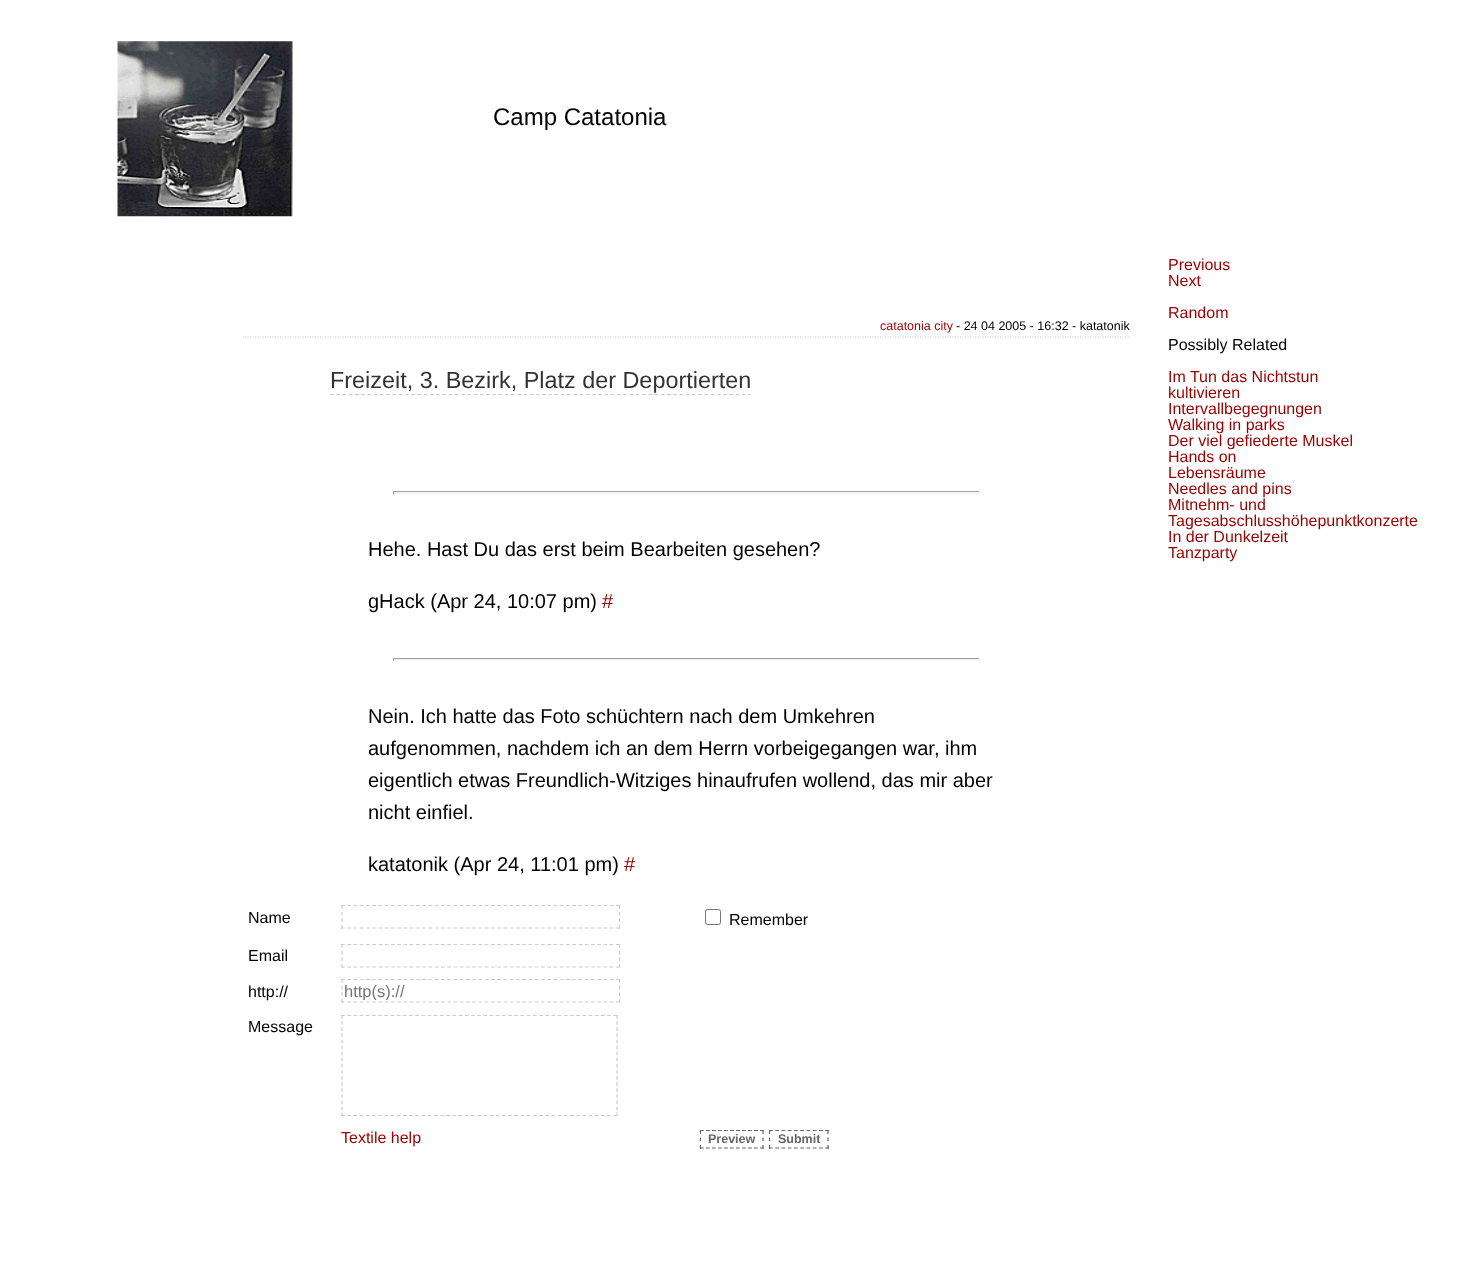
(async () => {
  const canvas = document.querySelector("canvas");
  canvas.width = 1472;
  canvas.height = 1270;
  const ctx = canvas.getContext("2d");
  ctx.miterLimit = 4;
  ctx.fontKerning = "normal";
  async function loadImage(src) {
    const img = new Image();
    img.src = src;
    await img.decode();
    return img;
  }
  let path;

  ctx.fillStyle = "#ffffff";
  ctx.fillRect(0, 0, 1472, 1270);
  ctx.drawImage(await loadImage("img/1.png"), 117, 41, 176, 176);
  path = new Path2D("M242.5 337H1130");
  ctx.strokeStyle = "#cccccc";
  ctx.lineWidth = 1.2;
  ctx.setLineDash([1.25, 1.25]);
  ctx.stroke(path);
  path = new Path2D("M330 394.5H751");
  ctx.setLineDash([3.75, 2.49]);
  ctx.stroke(path);
  for (const [x, y, w, h, color] of [
    [393, 491, 587, 1, "#9f9f9f"],
    [979, 491, 1, 3, "#eeeeee"],
    [393, 493, 587, 1, "#eeeeee"],
    [393, 491, 1, 3, "#9f9f9f"],
    [393, 658, 587, 1, "#9f9f9f"],
    [979, 658, 1, 3, "#eeeeee"],
    [393, 659, 587, 1, "#eeeeee"],
    [393, 658, 1, 3, "#9f9f9f"],
  ]) {
    ctx.fillStyle = color;
    ctx.fillRect(x, y, w, h);
  }
  path = new Path2D("M341 905.5H620");
  ctx.setLineDash([3.75, 2.5]);
  ctx.stroke(path);
  path = new Path2D("M619.5 905V929");
  ctx.setLineDash([3.75, 2.91]);
  ctx.stroke(path);
  path = new Path2D("M341 928H620");
  ctx.setLineDash([3.75, 2.5]);
  ctx.stroke(path);
  path = new Path2D("M342 905V929");
  ctx.setLineDash([3.75, 2.91]);
  ctx.stroke(path);
  ctx.beginPath();
  ctx.roundRect(705.5, 909.5, 15, 15, 2);
  ctx.strokeStyle = "#767676";
  ctx.lineWidth = 1;
  ctx.setLineDash([]);
  ctx.stroke();
  path = new Path2D("M341 944.5H620");
  ctx.strokeStyle = "#cccccc";
  ctx.lineWidth = 1.2;
  ctx.setLineDash([3.75, 2.5]);
  ctx.stroke(path);
  path = new Path2D("M619.5 944V967.5");
  ctx.setLineDash([3.75, 2.91]);
  ctx.stroke(path);
  path = new Path2D("M341 967H620");
  ctx.setLineDash([3.75, 2.5]);
  ctx.stroke(path);
  path = new Path2D("M342 944V967.5");
  ctx.setLineDash([3.75, 2.91]);
  ctx.stroke(path);
  path = new Path2D("M341 979.5H620");
  ctx.setLineDash([3.75, 2.5]);
  ctx.stroke(path);
  path = new Path2D("M619.5 979V1002.5");
  ctx.setLineDash([3.75, 2.91]);
  ctx.stroke(path);
  path = new Path2D("M341 1002H620");
  ctx.setLineDash([3.75, 2.5]);
  ctx.stroke(path);
  path = new Path2D("M342 979V1002.5");
  ctx.setLineDash([3.75, 2.91]);
  ctx.stroke(path);
  path = new Path2D("M341 1015.5H617.5");
  ctx.setLineDash([3.75, 2.44]);
  ctx.stroke(path);
  path = new Path2D("M617 1015V1116");
  ctx.setLineDash([3.75, 2.35]);
  ctx.stroke(path);
  path = new Path2D("M341 1115.5H617.5");
  ctx.setLineDash([3.75, 2.44]);
  ctx.stroke(path);
  path = new Path2D("M342 1015V1116");
  ctx.setLineDash([3.75, 2.35]);
  ctx.stroke(path);
  path = new Path2D("M700 1130.5H764");
  ctx.strokeStyle = "#666666";
  ctx.setLineDash([3.75, 2.25]);
  ctx.stroke(path);
  path = new Path2D("M763 1130V1134M763 1137.5V1141M763 1145V1149");
  ctx.setLineDash([]);
  ctx.stroke(path);
  path = new Path2D("M700 1148H764");
  ctx.setLineDash([3.75, 2.25]);
  ctx.stroke(path);
  path = new Path2D("M700.5 1130V1134M700.5 1137.5V1141M700.5 1145V1149");
  ctx.setLineDash([]);
  ctx.stroke(path);
  path = new Path2D("M769 1130.5H829");
  ctx.setLineDash([3.75, 2.5]);
  ctx.stroke(path);
  path = new Path2D("M828 1130V1134M828 1137.5V1141M828 1145V1149");
  ctx.setLineDash([]);
  ctx.stroke(path);
  path = new Path2D("M769 1148H829");
  ctx.setLineDash([3.75, 2.5]);
  ctx.stroke(path);
  path = new Path2D("M769.5 1130V1134M769.5 1137.5V1141M769.5 1145V1149");
  ctx.setLineDash([]);
  ctx.stroke(path);
  ctx.font = "24px Liberation Sans";
  ctx.fillStyle = "#000000";
  ctx.fillText("Camp Catatonia", 493, 125);
  ctx.font = "12.5px Liberation Sans";
  ctx.fillStyle = "#990000";
  ctx.fillText("catatonia city", 880, 330);
  ctx.fillStyle = "#000000";
  ctx.fillText("- 24 04 2005 - 16:32 - katatonik", 956, 330);
  ctx.font = "23.4px Liberation Sans";
  ctx.fillStyle = "#333333";
  ctx.fillText("Freizeit, 3. Bezirk, Platz der Deportierten", 330, 388);
  ctx.font = "20px Liberation Sans";
  ctx.fillStyle = "#000000";
  ctx.fillText("Hehe. Hast Du das erst beim Bearbeiten gesehen?", 368, 556);
  ctx.fillText("gHack (Apr 24, 10:07 pm)", 368, 608);
  ctx.fillStyle = "#990000";
  ctx.fillText("#", 602, 608);
  ctx.fillStyle = "#000000";
  for (const [text, x, y] of [
    ["Nein. Ich hatte das Foto schüchtern nach dem Umkehren", 368, 723],
    ["aufgenommen, nachdem ich an dem Herrn vorbeigegangen war, ihm", 368, 755],
    ["eigentlich etwas Freundlich-Witziges hinaufrufen wollend, das mir aber", 368, 787],
    ["nicht einfiel.", 368, 819],
    ["katatonik (Apr 24, 11:01 pm)", 368, 871],
  ]) {
    ctx.fillText(text, x, y);
  }
  ctx.fillStyle = "#990000";
  ctx.fillText("#", 624, 871);
  ctx.font = "16px Liberation Sans";
  ctx.fillStyle = "#000000";
  for (const [text, x, y] of [
    ["Name", 248, 923],
    ["Remember", 729, 925],
    ["Email", 248, 961],
    ["http://", 248, 997],
  ]) {
    ctx.fillText(text, x, y);
  }
  ctx.save();
  ctx.beginPath();
  ctx.rect(345, 981, 271, 19);
  ctx.clip();
  ctx.font = "16.5px Liberation Sans";
  ctx.fillStyle = "#757575";
  ctx.fillText("http(s)://", 344, 997);
  ctx.restore();
  ctx.fillText("Message", 248, 1032);
  ctx.fillStyle = "#990000";
  ctx.fillText("Textile help", 341, 1143);
  ctx.font = "bold 12.5px Liberation Sans";
  ctx.fillStyle = "#666666";
  ctx.fillText("Preview", 708, 1143);
  ctx.fillText("Submit", 778, 1143);
  ctx.font = "16px Liberation Sans";
  ctx.fillStyle = "#990000";
  for (const [text, x, y] of [
    ["Previous", 1168, 270],
    ["Next", 1168, 286],
    ["Random", 1168, 318],
  ]) {
    ctx.fillText(text, x, y);
  }
  ctx.fillStyle = "#000000";
  ctx.fillText("Possibly Related", 1168, 350);
  ctx.fillStyle = "#990000";
  for (const [text, x, y] of [
    ["Im Tun das Nichtstun", 1168, 382],
    ["kultivieren", 1168, 398],
    ["Intervallbegegnungen", 1168, 414],
    ["Walking in parks", 1168, 430],
    ["Der viel gefiederte Muskel", 1168, 446],
    ["Hands on", 1168, 462],
    ["Lebensräume", 1168, 478],
    ["Needles and pins", 1168, 494],
    ["Mitnehm- und", 1168, 510],
    ["Tagesabschlusshöhepunktkonzerte", 1168, 526],
    ["In der Dunkelzeit", 1168, 542],
    ["Tanzparty", 1168, 558],
  ]) {
    ctx.fillText(text, x, y);
  }
})();
